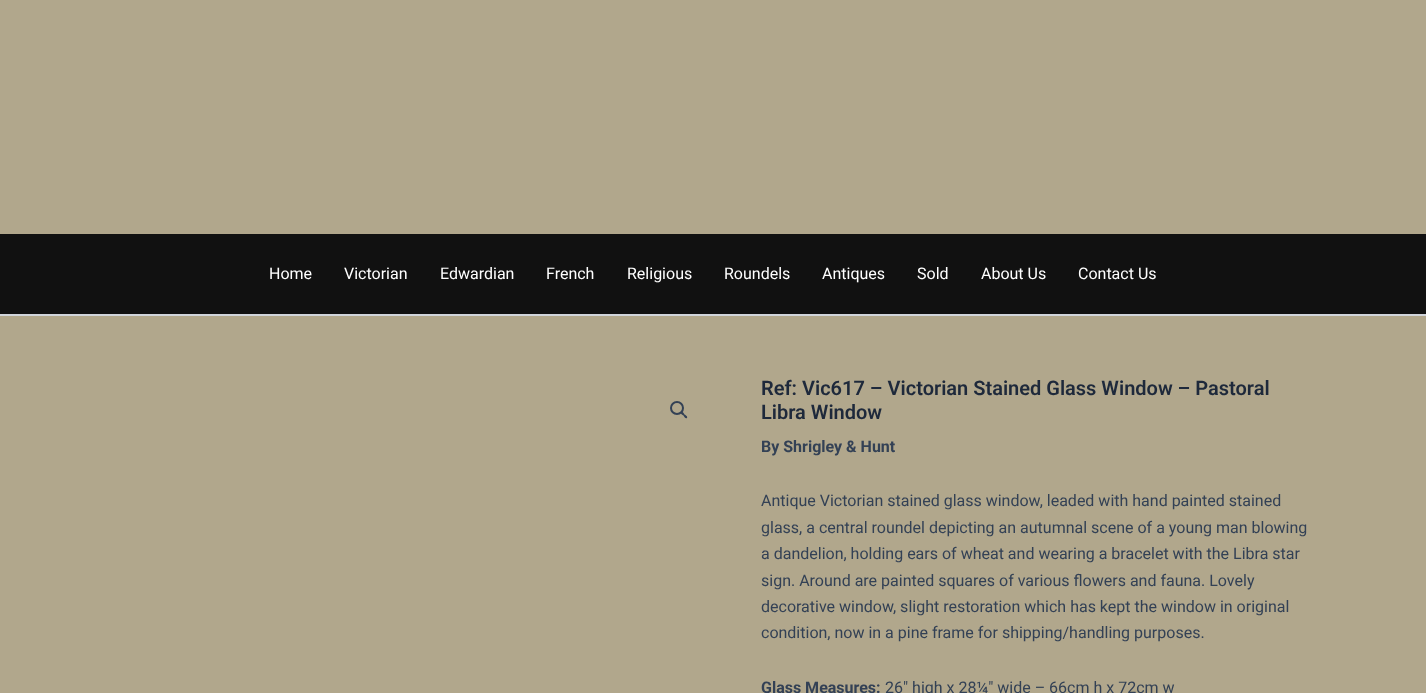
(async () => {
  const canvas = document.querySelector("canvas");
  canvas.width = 1426;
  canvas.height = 693;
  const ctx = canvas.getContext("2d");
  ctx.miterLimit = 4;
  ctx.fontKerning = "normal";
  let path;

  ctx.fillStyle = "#b1a78c";
  ctx.fillRect(0, 0, 1426, 693);
  ctx.fillStyle = "#111111";
  ctx.fillRect(0, 234, 1426, 80);
  ctx.fillStyle = "#d1d5db";
  ctx.fillRect(0, 314, 1426, 2);
  ctx.beginPath();
  ctx.arc(677, 408, 6, 0, Math.PI * 2);
  ctx.strokeStyle = "#334155";
  ctx.lineWidth = 2;
  ctx.stroke();
  ctx.fillStyle = "#334155";
  path = new Path2D("M681 412C682.5 411 684 413.5 684.5 414.5C685.5 415 688 416.5 687 418C685.5 419 684 416.5 683.5 415.5C682.5 415 680 413.5 681 412Z");
  ctx.fill(path);
  ctx.font = "16px Roboto";
  ctx.fillStyle = "#ffffff";
  for (const [text, x, y] of [
    ["Home", 269, 279],
    ["Victorian", 344, 279],
    ["Edwardian", 440, 279],
    ["French", 546, 279],
    ["Religious", 627, 279],
    ["Roundels", 724, 279],
    ["Antiques", 822, 279],
    ["Sold", 917, 279],
    ["About Us", 981, 279],
    ["Contact Us", 1078, 279],
  ]) {
    ctx.fillText(text, x, y);
  }
  ctx.font = "600 20px Roboto";
  ctx.fillStyle = "#1e293b";
  ctx.fillText("Ref: Vic617 – Victorian Stained Glass Window – Pastoral", 761, 395);
  ctx.fillText("Libra Window", 761, 419);
  ctx.font = "bold 16px Roboto";
  ctx.fillStyle = "#334155";
  ctx.fillText("By Shrigley & Hunt", 761, 452);
  ctx.font = "16px Roboto";
  for (const [text, x, y] of [
    ["Antique Victorian stained glass window, leaded with hand painted stained", 761, 506],
    ["glass, a central roundel depicting an autumnal scene of a young man blowing", 761, 533],
    ["a dandelion, holding ears of wheat and wearing a bracelet with the Libra star", 761, 559],
    ["sign. Around are painted squares of various flowers and fauna. Lovely", 761, 586],
    ["decorative window, slight restoration which has kept the window in original", 761, 612],
    ["condition, now in a pine frame for shipping/handling purposes.", 761, 638],
  ]) {
    ctx.fillText(text, x, y);
  }
  ctx.font = "bold 16px Roboto";
  ctx.fillText("Glass Measures:", 761, 693);
  ctx.font = "16px Roboto";
  ctx.fillText("26″ high x 28¼″ wide – 66cm h x 72cm w", 885, 693);
})();
